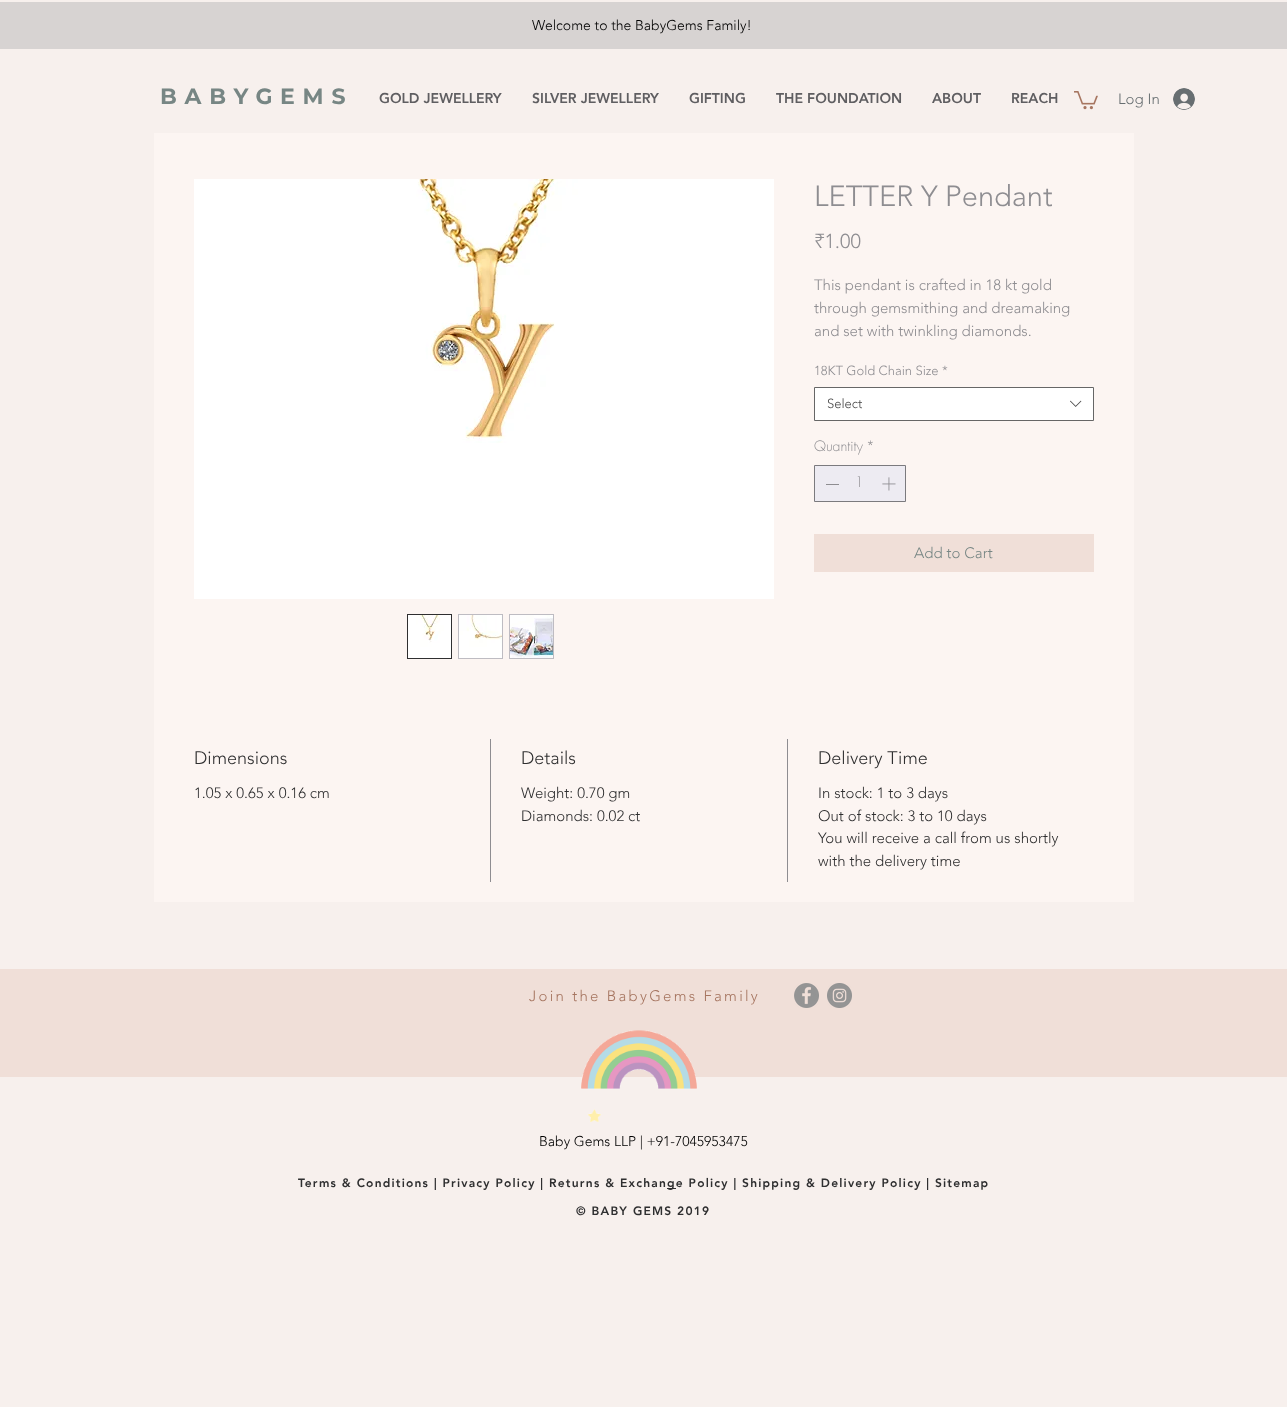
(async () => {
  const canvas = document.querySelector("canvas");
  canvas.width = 1287;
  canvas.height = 1407;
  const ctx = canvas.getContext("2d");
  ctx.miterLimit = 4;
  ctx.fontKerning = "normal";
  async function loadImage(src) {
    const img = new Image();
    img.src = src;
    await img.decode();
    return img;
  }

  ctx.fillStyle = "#f7f0ed";
  ctx.fillRect(0, 0, 1287, 1407);
  ctx.fillStyle = "#d7d3d2";
  ctx.fillRect(0, 2, 1287, 47);
  ctx.drawImage(await loadImage("img/1.png"), 1074, 91, 24, 19);
  ctx.drawImage(await loadImage("img/2.png"), 1173, 88, 22, 22);
  ctx.fillStyle = "#fcf5f2";
  ctx.fillRect(154, 133, 980, 769);
  ctx.drawImage(await loadImage("img/3.png"), 194, 179, 580, 420);
  ctx.strokeStyle = "#2f2f30";
  ctx.strokeRect(407.5, 614.5, 44, 44);
  ctx.drawImage(await loadImage("img/4.png"), 408, 615, 43, 43);
  ctx.fillStyle = "#bebcc2";
  ctx.fillRect(458, 614, 45, 45);
  ctx.drawImage(await loadImage("img/5.png"), 459, 615, 43, 43);
  ctx.fillRect(509, 614, 45, 45);
  ctx.drawImage(await loadImage("img/6.png"), 510, 615, 43, 43);
  ctx.fillStyle = "#ffffff";
  ctx.beginPath();
  ctx.rect(814.5, 387.5, 279, 33);
  ctx.fill();
  ctx.strokeStyle = "#666666";
  ctx.stroke();
  ctx.drawImage(await loadImage("img/7.png"), 1070, 400, 12, 7);
  ctx.fillStyle = "#edebf2";
  ctx.beginPath();
  ctx.rect(814.5, 465.5, 91, 36);
  ctx.fill();
  ctx.strokeStyle = "#7b7a7e";
  ctx.stroke();
  ctx.fillStyle = "#8e8d91";
  ctx.fillRect(826, 484, 13, 1);
  ctx.drawImage(await loadImage("img/8.png"), 882, 477, 14, 14);
  for (const [x, y, w, h, color] of [
    [814, 534, 280, 38, "#f0dfd8"],
    [490, 739, 1, 143, "#8e8d91"],
    [787, 739, 1, 143, "#8e8d91"],
    [0, 969, 1287, 108, "#f0dfd8"],
  ]) {
    ctx.fillStyle = color;
    ctx.fillRect(x, y, w, h);
  }
  ctx.drawImage(await loadImage("img/9.png"), 794, 983, 25, 25);
  ctx.drawImage(await loadImage("img/10.png"), 827, 983, 25, 25);
  ctx.drawImage(await loadImage("img/11.png"), 581, 1030, 116, 92);
  ctx.fillStyle = "#2f2f30";
  ctx.fillRect(667, 1188, 9, 1);
  ctx.font = "300 14px 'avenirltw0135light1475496'";
  ctx.fillStyle = "#000000";
  ctx.fillText("Welcome to the BabyGems Family!", 532, 30);
  ctx.letterSpacing = "7.75px";
  ctx.font = "bold 22px Montserrat";
  ctx.fillStyle = "#778684";
  ctx.fillText("BABYGEMS", 160, 104);
  ctx.letterSpacing = "0px";
  ctx.font = "900 14px 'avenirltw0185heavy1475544'";
  ctx.fillStyle = "#5f5e61";
  for (const [text, x, y] of [
    ["GOLD JEWELLERY", 379, 103],
    ["SILVER JEWELLERY", 532, 103],
    ["GIFTING", 689, 103],
    ["THE FOUNDATION", 776, 103],
    ["ABOUT", 932, 103],
    ["REACH", 1011, 103],
  ]) {
    ctx.fillText(text, x, y);
  }
  ctx.font = "300 15px 'avenirltw0135light1475496'";
  ctx.fillStyle = "#676e71";
  ctx.fillText("Log In", 1118, 104);
  ctx.font = "300 29px 'avenirltw0135light1475496'";
  ctx.fillStyle = "#8e8d91";
  ctx.fillText("LETTER Y Pendant", 814, 206);
  ctx.font = "300 20px 'avenirltw0135light1475496'";
  ctx.fillText("₹1.00", 814, 248);
  ctx.font = "300 15px 'avenirltw0135light1475496'";
  for (const [text, x, y] of [
    ["This pendant is crafted in 18 kt gold", 814, 290],
    ["through gemsmithing and dreamaking", 814, 313],
    ["and set with twinkling diamonds.", 814, 336],
  ]) {
    ctx.fillText(text, x, y);
  }
  ctx.font = "300 13px 'avenirltw0135light1475496'";
  ctx.fillText("18KT Gold Chain Size", 814, 375);
  ctx.fillText("*", 942, 375);
  ctx.fillStyle = "#444444";
  ctx.fillText("Select", 827, 408);
  ctx.font = "300 14px futura";
  ctx.fillStyle = "#8e8d91";
  for (const [text, x, y] of [
    ["Quantity", 814, 451],
    ["*", 866, 451],
    ["1", 855, 487],
  ]) {
    ctx.fillText(text, x, y);
  }
  ctx.font = "300 15px 'avenirltw0135light1475496'";
  ctx.fillStyle = "#778684";
  ctx.fillText("Add to Cart", 914, 558);
  ctx.font = "300 18px 'avenirltw0135light1475496'";
  ctx.fillStyle = "#2f2f30";
  ctx.fillText("Dimensions", 194, 764);
  ctx.font = "300 15px 'avenirltw0135light1475496'";
  ctx.fillText("1.05 x 0.65 x 0.16 cm", 194, 798);
  ctx.font = "300 18px 'avenirltw0135light1475496'";
  ctx.fillText("Details", 521, 764);
  ctx.font = "300 15px 'avenirltw0135light1475496'";
  ctx.fillText("Weight: 0.70 gm", 521, 798);
  ctx.fillText("Diamonds: 0.02 ct", 521, 821);
  ctx.font = "300 18px 'avenirltw0135light1475496'";
  ctx.fillText("Delivery Time", 818, 764);
  ctx.font = "300 15px 'avenirltw0135light1475496'";
  for (const [text, x, y] of [
    ["In stock: 1 to 3 days", 818, 798],
    ["Out of stock: 3 to 10 days", 818, 821],
    ["You will receive a call from us shortly", 818, 843],
    ["with the delivery time", 818, 866],
  ]) {
    ctx.fillText(text, x, y);
  }
  ctx.letterSpacing = "2.25px";
  ctx.fillStyle = "#a67560";
  ctx.fillText("Join the BabyGems Family", 529, 1001);
  ctx.letterSpacing = "0px";
  ctx.font = "300 14px 'avenirltw0135light1475496'";
  ctx.fillStyle = "#000000";
  ctx.fillText("Baby Gems LLP | +91-7045953475", 539, 1146);
  ctx.letterSpacing = "1.2px";
  ctx.font = "900 12px 'avenirltw0185heavy1475544'";
  ctx.fillStyle = "#2f2f30";
  for (const [text, x, y] of [
    ["Terms & Conditions | Privacy Policy | Returns & Exchan", 298, 1187],
    ["ge Policy | Shipping & Delivery Policy | Sitemap", 667, 1187],
    ["© BABY GEMS 2019", 576, 1215],
  ]) {
    ctx.fillText(text, x, y);
  }
})();
